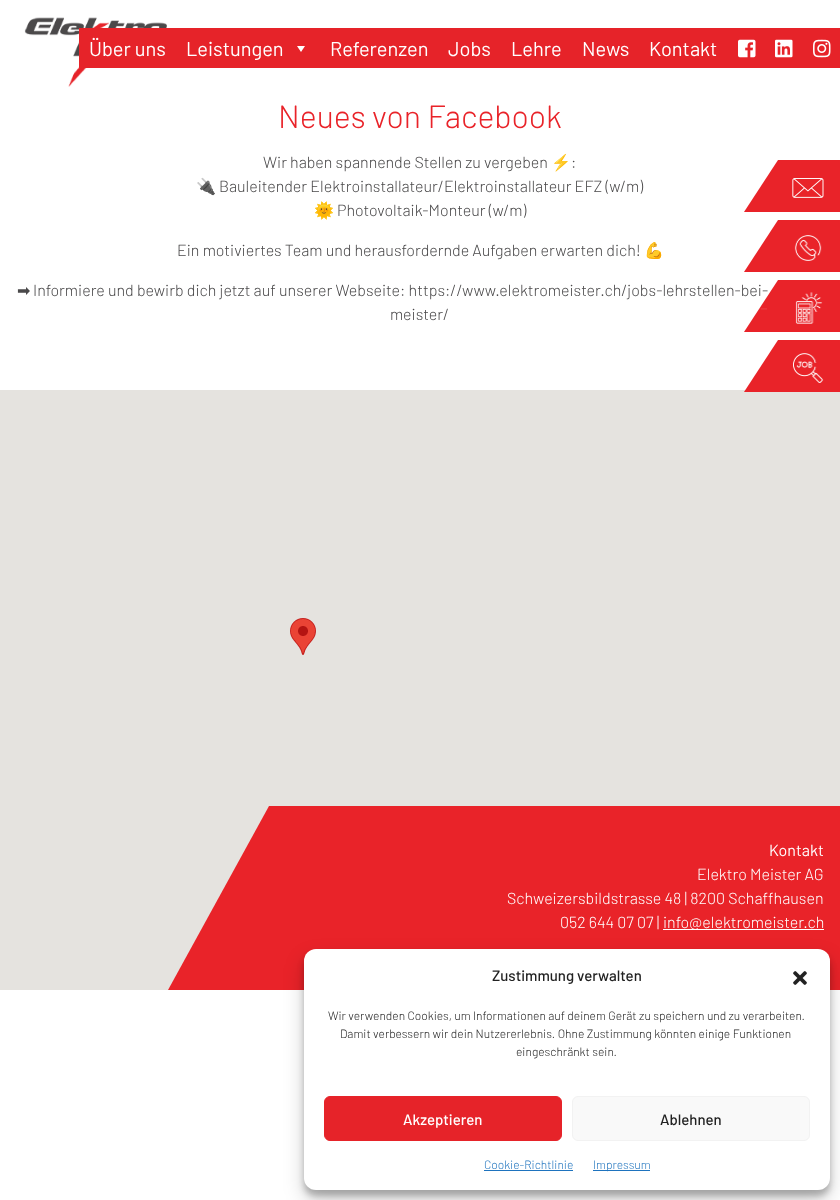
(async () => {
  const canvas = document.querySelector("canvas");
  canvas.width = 840;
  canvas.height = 1200;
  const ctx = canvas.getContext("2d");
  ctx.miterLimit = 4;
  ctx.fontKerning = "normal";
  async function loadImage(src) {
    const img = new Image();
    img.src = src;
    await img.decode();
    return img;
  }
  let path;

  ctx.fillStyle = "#ffffff";
  ctx.fillRect(0, 0, 840, 1200);
  ctx.drawImage(await loadImage("img/1.png"), 24, 17, 143, 70);
  ctx.fillStyle = "#e62329";
  ctx.fillRect(79, 28, 761, 40);
  ctx.fillStyle = "#ffffff";
  path = new Path2D("M305 46L301 52L297 46Z");
  ctx.fill(path);
  ctx.drawImage(await loadImage("img/2.png"), 738, 39, 18, 19);
  ctx.drawImage(await loadImage("img/3.png"), 775, 39, 18, 19);
  ctx.drawImage(await loadImage("img/4.png"), 813, 39, 18, 19);
  ctx.fillStyle = "#e92329";
  path = new Path2D("M778 160L744 212H840V160Z");
  ctx.fill(path);
  ctx.drawImage(await loadImage("img/5.png"), 792, 178, 32, 20);
  path = new Path2D("M778 220L744 272H840V220Z");
  ctx.fill(path);
  ctx.drawImage(await loadImage("img/6.png"), 794, 235, 28, 26);
  ctx.fillStyle = "#e5e3df";
  ctx.fillRect(0, 390, 840, 600);
  ctx.fillStyle = "#e92329";
  path = new Path2D("M778 340L744 392H840V340Z");
  ctx.fill(path);
  ctx.drawImage(await loadImage("img/8.png"), 793, 353, 31, 30);
  ctx.drawImage(await loadImage("img/9.png"), 290, 618, 26, 37);
  path = new Path2D("M269 806L168 990H840V806Z");
  ctx.fill(path);
  ctx.fillStyle = "#ffffff";
  ctx.fillRect(663, 929, 161, 1);
  ctx.fillStyle = "rgba(0, 0, 0, 0.23)";
  ctx.filter = "blur(3px)";
  ctx.beginPath();
  ctx.roundRect(304, 955, 526, 241, 12);
  ctx.fill();
  ctx.filter = "none";
  ctx.fillStyle = "rgba(0, 0, 0, 0.19)";
  ctx.filter = "blur(10px)";
  ctx.beginPath();
  ctx.roundRect(304, 959, 526, 241, 12);
  ctx.fill();
  ctx.filter = "none";
  ctx.fillStyle = "#ffffff";
  ctx.beginPath();
  ctx.roundRect(304, 949, 526, 241, 12);
  ctx.fill();
  ctx.drawImage(await loadImage("img/10.png"), 793, 971, 14, 14);
  ctx.fillStyle = "#e62329";
  ctx.beginPath();
  ctx.roundRect(324.5, 1096.5, 237, 44, 5.5);
  ctx.fill();
  ctx.strokeStyle = "#e62329";
  ctx.stroke();
  ctx.fillStyle = "#f9f9f9";
  ctx.beginPath();
  ctx.roundRect(572.5, 1096.5, 237, 44, 5.5);
  ctx.fill();
  ctx.strokeStyle = "#f2f2f2";
  ctx.stroke();
  ctx.fillStyle = "#1e73be";
  ctx.fillRect(484, 1170, 89, 1);
  ctx.fillRect(593, 1170, 57, 1);
  ctx.font = "20px Barlow";
  ctx.fillStyle = "#ffffff";
  for (const [text, x, y] of [
    ["Über uns", 89, 56],
    ["Leistungen", 186, 56],
    ["Referenzen", 330, 56],
    ["Jobs", 448, 56],
    ["Lehre", 511, 56],
    ["News", 582, 56],
    ["Kontakt", 649, 56],
  ]) {
    ctx.fillText(text, x, y);
  }
  ctx.font = "300 32px Barlow";
  ctx.fillStyle = "#e92329";
  ctx.fillText("Neues von Facebook", 278, 128);
  ctx.font = "300 16px Barlow";
  ctx.fillStyle = "#4a494a";
  ctx.fillText("Wir haben spannende Stellen zu vergeben", 263, 168);
  ctx.font = "16px Noto Color Emoji";
  ctx.fillText("⚡️", 551, 168);
  ctx.font = "300 16px Barlow";
  ctx.fillText(":", 571, 168);
  ctx.font = "16px Noto Color Emoji";
  ctx.fillText("🔌", 196, 192);
  ctx.font = "300 16px Barlow";
  ctx.fillText("Bauleitender Elektroinstallateur/Elektroinstallateur EFZ (w/m)", 219, 192);
  ctx.font = "16px Noto Color Emoji";
  ctx.fillText("🌞", 314, 216);
  ctx.font = "300 16px Barlow";
  ctx.fillText("Photovoltaik-Monteur (w/m)", 337, 216);
  ctx.fillText("Ein motiviertes Team und herausfordernde Aufgaben erwarten dich!", 177, 256);
  ctx.font = "16px Noto Color Emoji";
  ctx.fillText("💪", 644, 256);
  ctx.font = "16px DejaVu Sans";
  ctx.fillText("➡", 17, 296);
  ctx.font = "300 16px Barlow";
  ctx.fillText("Informiere und bewirb dich jetzt auf unserer Webseite: https://www.elektromeister.ch/jobs-lehrstellen-bei-", 33, 296);
  ctx.fillText("meister/", 390, 320);
  ctx.fillStyle = "#e92329";
  path = new Path2D("M778 280L744 332H840V280Z");
  ctx.fill(path);
  ctx.font = "20px Barlow";
  ctx.fillStyle = "#eb3b40";
  ctx.fillText("-", 760, 315);
  ctx.drawImage(await loadImage("img/7.png"), 795, 292, 28, 32);
  ctx.font = "16px Barlow";
  ctx.fillStyle = "#ffffff";
  ctx.fillText("Kontakt", 769, 856);
  ctx.font = "300 16px Barlow";
  for (const [text, x, y] of [
    ["Elektro Meister AG", 697, 880],
    ["Schweizersbildstrasse 48 | 8200 Schaffhausen", 507, 904],
    ["052 644 07 07 |", 560, 928],
    ["info@elektromeister.ch", 663, 928],
  ]) {
    ctx.fillText(text, x, y);
  }
  ctx.font = "500 15px Barlow";
  ctx.fillStyle = "#222222";
  ctx.fillText("Zustimmung verwalten", 492, 981);
  ctx.font = "300 12px Barlow";
  for (const [text, x, y] of [
    ["Wir verwenden Cookies, um Informationen auf deinem Gerät zu speichern und zu verarbeiten.", 328, 1020],
    ["Damit verbessern wir dein Nutzererlebnis. Ohne Zustimmung könnten einige Funktionen", 340, 1038],
    ["eingeschränkt sein.", 516, 1056],
  ]) {
    ctx.fillText(text, x, y);
  }
  ctx.font = "500 15px Barlow";
  ctx.fillStyle = "#ffffff";
  ctx.fillText("Akzeptieren", 403, 1125);
  ctx.fillStyle = "#222222";
  ctx.fillText("Ablehnen", 660, 1125);
  ctx.font = "300 12px Barlow";
  ctx.fillStyle = "#1e73be";
  ctx.fillText("Cookie-Richtlinie", 484, 1169);
  ctx.fillText("Impressum", 593, 1169);
})();
